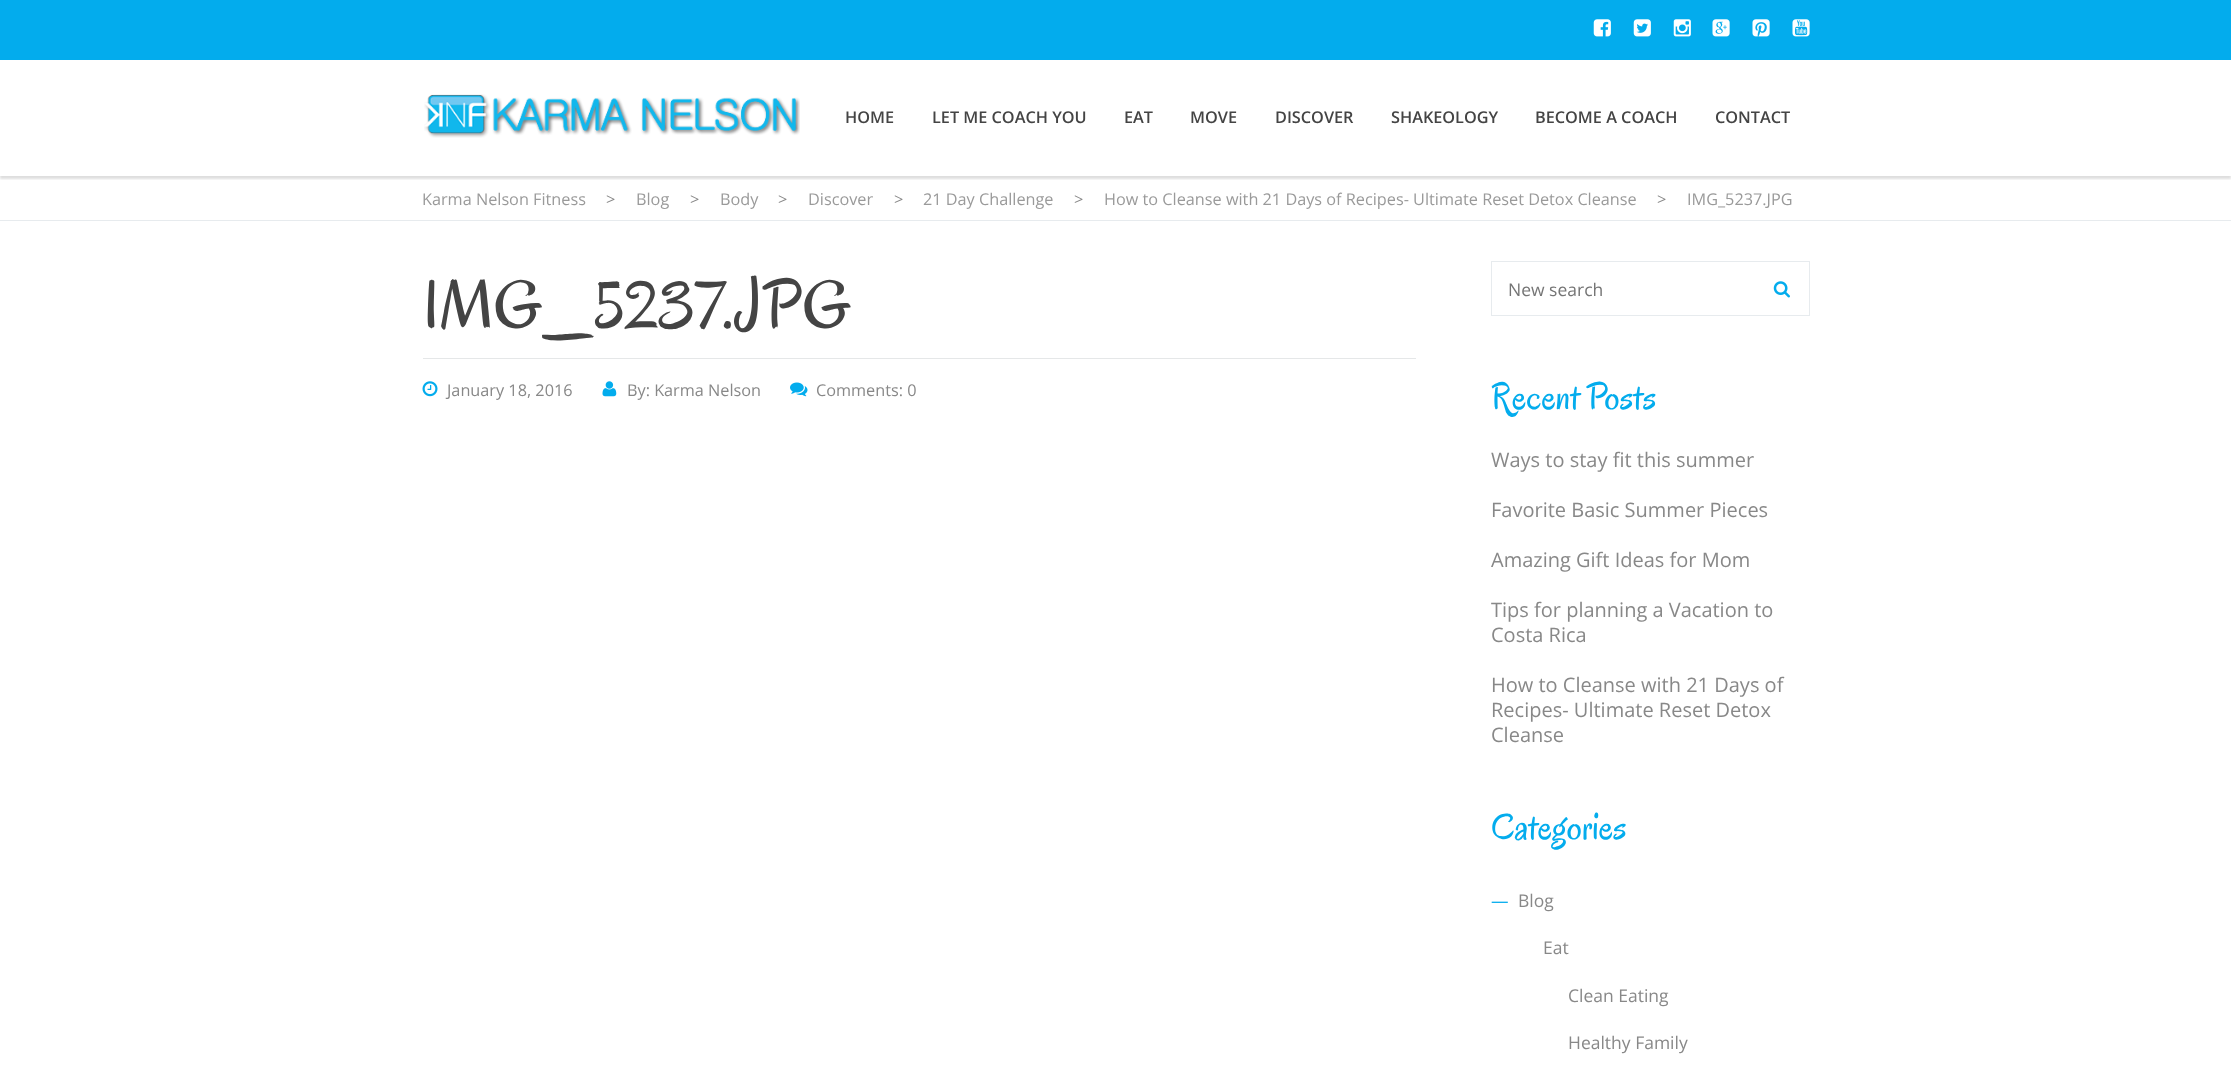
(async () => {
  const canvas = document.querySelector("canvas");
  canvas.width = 2231;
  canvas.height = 1086;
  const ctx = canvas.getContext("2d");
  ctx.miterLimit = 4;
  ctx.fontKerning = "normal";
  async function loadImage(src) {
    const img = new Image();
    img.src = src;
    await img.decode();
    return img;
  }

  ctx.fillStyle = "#ffffff";
  ctx.fillRect(0, 0, 2231, 1086);
  ctx.save();
  ctx.beginPath();
  ctx.rect(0, 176, 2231, 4);
  ctx.clip();
  ctx.fillStyle = "rgba(0, 0, 0, 0.13)";
  ctx.filter = "blur(1px)";
  ctx.beginPath();
  ctx.rect(0, 63, 2231, 116);
  ctx.fill();
  ctx.filter = "none";
  ctx.restore();
  ctx.fillStyle = "#03aced";
  ctx.fillRect(0, 0, 2231, 60);
  ctx.drawImage(await loadImage("img/1.png"), 1593, 19, 18, 18);
  ctx.drawImage(await loadImage("img/2.png"), 1633, 19, 18, 18);
  ctx.drawImage(await loadImage("img/3.png"), 1673, 19, 18, 18);
  ctx.drawImage(await loadImage("img/4.png"), 1712, 19, 18, 18);
  ctx.drawImage(await loadImage("img/5.png"), 1752, 19, 18, 18);
  ctx.drawImage(await loadImage("img/6.png"), 1792, 19, 18, 18);
  ctx.drawImage(await loadImage("img/7.png"), 424, 94, 376, 44);
  ctx.fillStyle = "#e7ebee";
  ctx.fillRect(0, 220, 2231, 1);
  ctx.fillStyle = "#e5e7e8";
  ctx.fillRect(423, 358, 993, 1);
  ctx.drawImage(await loadImage("img/8.png"), 422, 381, 16, 16);
  ctx.drawImage(await loadImage("img/9.png"), 602, 381, 15, 16);
  ctx.drawImage(await loadImage("img/10.png"), 790, 382, 18, 15);
  ctx.strokeStyle = "#e7ebee";
  ctx.strokeRect(1491.5, 261.5, 318, 54);
  ctx.drawImage(await loadImage("img/11.png"), 1773, 281, 17, 17);
  ctx.font = "600 16.25px Open Sans";
  ctx.fillStyle = "#444444";
  for (const [text, x, y] of [
    ["HOME", 845, 123],
    ["LET ME COACH YOU", 932, 123],
    ["EAT", 1124, 123],
    ["MOVE", 1190, 123],
    ["DISCOVER", 1275, 123],
    ["SHAKEOLOGY", 1391, 123],
    ["BECOME A COACH", 1535, 123],
    ["CONTACT", 1715, 123],
  ]) {
    ctx.fillText(text, x, y);
  }
  ctx.font = "16.25px Open Sans";
  ctx.fillStyle = "#9a9a9a";
  ctx.fillText("Karma Nelson Fitness", 422, 205);
  ctx.fillStyle = "#888888";
  ctx.fillText(">", 606, 205);
  ctx.fillStyle = "#9a9a9a";
  ctx.fillText("Blog", 636, 205);
  ctx.fillStyle = "#888888";
  ctx.fillText(">", 690, 205);
  ctx.fillStyle = "#9a9a9a";
  ctx.fillText("Body", 720, 205);
  ctx.fillStyle = "#888888";
  ctx.fillText(">", 778, 205);
  ctx.fillStyle = "#9a9a9a";
  ctx.fillText("Discover", 808, 205);
  ctx.fillStyle = "#888888";
  ctx.fillText(">", 894, 205);
  ctx.fillStyle = "#9a9a9a";
  ctx.fillText("21 Day Challenge", 923, 205);
  ctx.fillStyle = "#888888";
  ctx.fillText(">", 1074, 205);
  ctx.fillStyle = "#9a9a9a";
  ctx.fillText("How to Cleanse with 21 Days of Recipes- Ultimate Reset Detox Cleanse", 1104, 205);
  ctx.fillStyle = "#888888";
  ctx.fillText(">", 1657, 205);
  ctx.fillStyle = "#9a9a9a";
  ctx.fillText("IMG_5237.JPG", 1687, 205);
  ctx.font = "68.75px Oregano";
  ctx.fillStyle = "#444444";
  ctx.fillText("IMG_5237.JPG", 422, 328);
  ctx.font = "16.25px Open Sans";
  ctx.fillStyle = "#888888";
  for (const [text, x, y] of [
    ["January 18, 2016", 447, 396],
    ["By: Karma Nelson", 627, 396],
    ["Comments: 0", 816, 396],
  ]) {
    ctx.fillText(text, x, y);
  }
  ctx.font = "17.5px Open Sans";
  ctx.fillStyle = "#757575";
  ctx.fillText("New search", 1508, 296);
  ctx.font = "37.5px Oregano";
  ctx.fillStyle = "#03aced";
  ctx.fillText("Recent Posts", 1491, 409);
  ctx.font = "20px Open Sans";
  ctx.fillStyle = "#888888";
  for (const [text, x, y] of [
    ["Ways to stay fit this summer", 1491, 467],
    ["Favorite Basic Summer Pieces", 1491, 517],
    ["Amazing Gift Ideas for Mom", 1491, 567],
    ["Tips for planning a Vacation to", 1491, 617],
    ["Costa Rica", 1491, 642],
    ["How to Cleanse with 21 Days of", 1491, 692],
    ["Recipes- Ultimate Reset Detox", 1491, 717],
    ["Cleanse", 1491, 742],
  ]) {
    ctx.fillText(text, x, y);
  }
  ctx.font = "37.5px Oregano";
  ctx.fillStyle = "#03aced";
  ctx.fillText("Categories", 1491, 839);
  ctx.font = "17.5px Open Sans";
  ctx.fillText("—", 1491, 907);
  ctx.fillStyle = "#888888";
  for (const [text, x, y] of [
    ["Blog", 1518, 907],
    ["Eat", 1543, 954],
    ["Clean Eating", 1568, 1002],
    ["Healthy Family", 1568, 1049],
  ]) {
    ctx.fillText(text, x, y);
  }
})();
